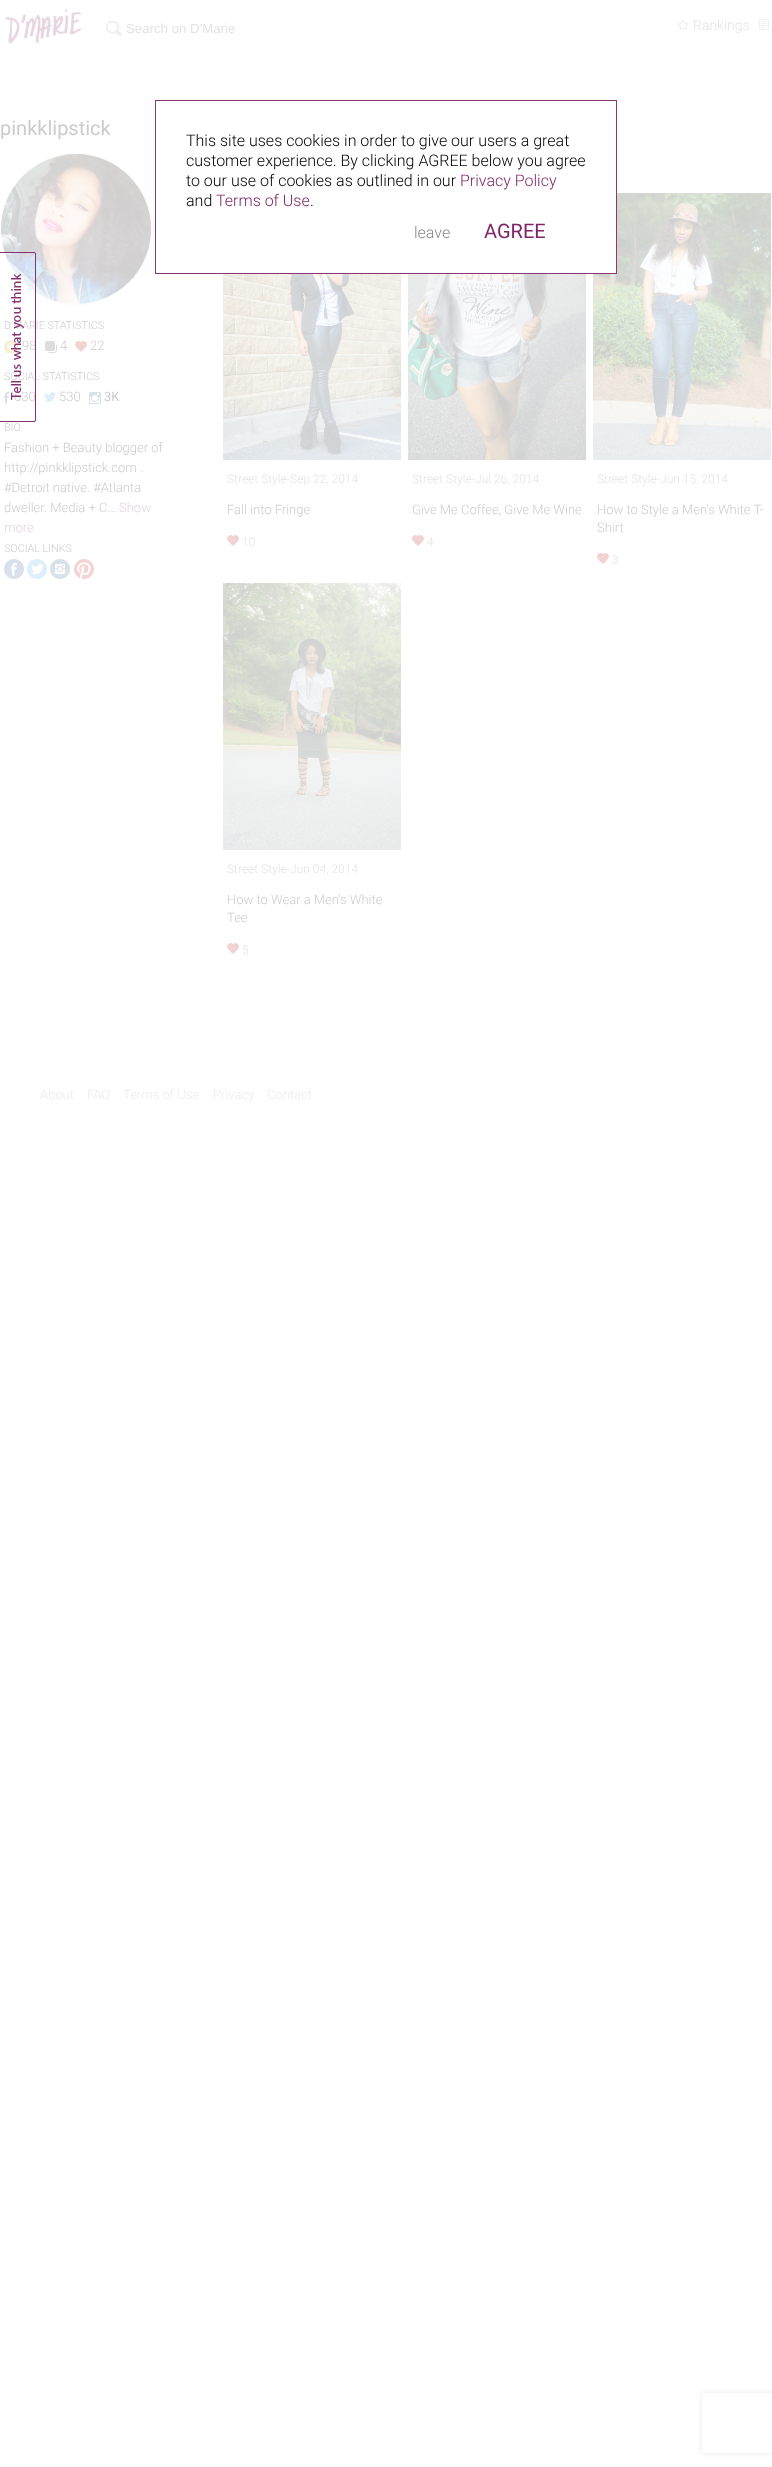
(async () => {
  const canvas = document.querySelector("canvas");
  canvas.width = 772;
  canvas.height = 2467;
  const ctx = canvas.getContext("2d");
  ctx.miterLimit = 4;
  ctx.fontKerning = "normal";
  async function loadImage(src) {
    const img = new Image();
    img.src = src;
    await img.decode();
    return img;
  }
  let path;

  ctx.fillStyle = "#ffffff";
  ctx.fillRect(0, 0, 772, 2467);
  ctx.fillStyle = "#fcfcfc";
  ctx.fillRect(0, 53, 771, 1);
  ctx.drawImage(await loadImage("img/1.png"), 5, 9, 77, 35);
  ctx.drawImage(await loadImage("img/2.png"), 106, 21, 16, 15);
  ctx.drawImage(await loadImage("img/3.png"), 677, 19, 12, 12);
  ctx.drawImage(await loadImage("img/4.png"), 759, 19, 10, 11);
  ctx.beginPath();
  ctx.arc(76, 229, 75.5, 0, Math.PI * 2);
  ctx.strokeStyle = "#fcfcfc";
  ctx.stroke();
  ctx.drawImage(await loadImage("img/5.png"), 1, 154, 150, 150);
  ctx.drawImage(await loadImage("img/6.png"), 4, 340, 14, 13);
  ctx.drawImage(await loadImage("img/7.png"), 45, 341, 12, 12);
  ctx.drawImage(await loadImage("img/8.png"), 75, 341, 12, 11);
  ctx.drawImage(await loadImage("img/9.png"), 4, 392, 6, 12);
  ctx.drawImage(await loadImage("img/10.png"), 44, 392, 12, 10);
  ctx.drawImage(await loadImage("img/11.png"), 89, 392, 12, 12);
  ctx.drawImage(await loadImage("img/12.png"), 4, 559, 20, 20);
  ctx.drawImage(await loadImage("img/13.png"), 27, 559, 20, 20);
  ctx.drawImage(await loadImage("img/14.png"), 50, 559, 20, 20);
  ctx.drawImage(await loadImage("img/15.png"), 74, 559, 20, 20);
  ctx.fillStyle = "rgba(204, 204, 204, 0.2)";
  ctx.filter = "blur(0.5px)";
  ctx.beginPath();
  ctx.roundRect(223, 193, 178, 358, 2);
  ctx.fill();
  ctx.filter = "none";
  ctx.fillStyle = "#ffffff";
  ctx.beginPath();
  ctx.roundRect(223, 193, 178, 358, 2);
  ctx.fill();
  ctx.drawImage(await loadImage("img/16.png"), 223, 274, 178, 186);
  ctx.drawImage(await loadImage("img/17.png"), 227, 535, 12, 11);
  ctx.fillStyle = "rgba(204, 204, 204, 0.2)";
  ctx.filter = "blur(0.5px)";
  ctx.beginPath();
  ctx.roundRect(408, 193, 178, 358, 2);
  ctx.fill();
  ctx.filter = "none";
  ctx.fillStyle = "#ffffff";
  ctx.beginPath();
  ctx.roundRect(408, 193, 178, 358, 2);
  ctx.fill();
  ctx.drawImage(await loadImage("img/18.png"), 408, 274, 178, 186);
  ctx.drawImage(await loadImage("img/17.png"), 412, 535, 12, 11);
  ctx.fillStyle = "rgba(204, 204, 204, 0.2)";
  ctx.filter = "blur(0.5px)";
  ctx.beginPath();
  ctx.roundRect(593, 193, 178, 376, 2);
  ctx.fill();
  ctx.filter = "none";
  ctx.fillStyle = "#ffffff";
  ctx.beginPath();
  ctx.roundRect(593, 193, 178, 376, 2);
  ctx.fill();
  ctx.drawImage(await loadImage("img/19.png"), 593, 193, 178, 267);
  ctx.drawImage(await loadImage("img/17.png"), 597, 553, 12, 11);
  ctx.fillStyle = "rgba(204, 204, 204, 0.2)";
  ctx.filter = "blur(0.5px)";
  ctx.beginPath();
  ctx.roundRect(223, 583, 178, 376, 2);
  ctx.fill();
  ctx.filter = "none";
  ctx.fillStyle = "#ffffff";
  ctx.beginPath();
  ctx.roundRect(223, 583, 178, 376, 2);
  ctx.fill();
  ctx.drawImage(await loadImage("img/20.png"), 223, 583, 178, 267);
  ctx.drawImage(await loadImage("img/17.png"), 227, 943, 12, 11);
  ctx.fillRect(593, 193, 23, 80);
  ctx.strokeStyle = "#893875";
  ctx.strokeRect(155.5, 100.5, 461, 173);
  ctx.save();
  path = new Path2D("M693 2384H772V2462H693ZM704 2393H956C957 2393 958 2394 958 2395V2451C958 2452 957 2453 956 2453H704C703 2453 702 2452 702 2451V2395C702 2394 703 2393 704 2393Z");
  ctx.clip(path, "evenodd");
  ctx.fillStyle = "#e6e6e6";
  ctx.filter = "blur(2.5px)";
  ctx.beginPath();
  ctx.roundRect(702, 2393, 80, 60, 2);
  ctx.fill();
  ctx.filter = "none";
  ctx.restore();
  ctx.font = "13.25px Liberation Sans";
  ctx.fillStyle = "#e3e3e3";
  ctx.fillText("Search on D'Marie", 126, 33);
  ctx.font = "300 14px Roboto";
  ctx.fillText("Rankings", 693, 30);
  ctx.font = "20px Roboto";
  ctx.fillStyle = "#cccccc";
  ctx.fillText("pinkklipstick", 0, 135);
  ctx.font = "300 10.75px Roboto";
  ctx.fillText("D'MARIE STATISTICS", 4, 329);
  ctx.font = "300 13px Roboto";
  for (const [text, x, y] of [
    ["98", 22, 350],
    ["4", 60, 350],
    ["22", 90, 350],
  ]) {
    ctx.fillText(text, x, y);
  }
  ctx.font = "300 10.75px Roboto";
  ctx.fillText("SOCIAL STATISTICS", 4, 380);
  ctx.font = "300 13px Roboto";
  ctx.fillText("630", 14, 401);
  ctx.fillText("530", 59, 401);
  ctx.font = "13px Roboto";
  ctx.fillText("3K", 104, 401);
  ctx.font = "300 10.75px Roboto";
  ctx.fillText("BIO", 4, 431);
  ctx.font = "300 13px Roboto";
  for (const [text, x, y] of [
    ["Fashion + Beauty blogger of", 4, 452],
    ["http://pinkklipstick.com .", 4, 472],
    ["#Detroit native. #Atlanta", 4, 492],
    ["dweller. Media + C...", 4, 512],
  ]) {
    ctx.fillText(text, x, y);
  }
  ctx.fillStyle = "#e5d3e1";
  ctx.fillText("Show", 119, 512);
  ctx.fillText("more", 4, 532);
  ctx.font = "300 10.75px Roboto";
  ctx.fillStyle = "#cccccc";
  ctx.fillText("SOCIAL LINKS", 4, 552);
  ctx.font = "300 12px Roboto";
  ctx.fillStyle = "#e3e3e3";
  ctx.fillText("Street Style-Sep 22, 2014", 227, 483);
  ctx.font = "300 13px Roboto";
  ctx.fillStyle = "#cccccc";
  ctx.fillText("Fall into Fringe", 227, 514);
  ctx.font = "300 12px Roboto";
  ctx.fillStyle = "#e3e3e3";
  ctx.fillText("10", 242, 546);
  ctx.fillText("Street Style-Jul 26, 2014", 412, 483);
  ctx.font = "300 13px Roboto";
  ctx.fillStyle = "#cccccc";
  ctx.fillText("Give Me Coffee, Give Me Wine", 412, 514);
  ctx.font = "300 12px Roboto";
  ctx.fillStyle = "#e3e3e3";
  ctx.fillText("4", 427, 546);
  ctx.fillText("Street Style-Jun 15, 2014", 597, 483);
  ctx.font = "300 13px Roboto";
  ctx.fillStyle = "#cccccc";
  ctx.fillText("How to Style a Men's White T-", 597, 514);
  ctx.fillText("Shirt", 597, 532);
  ctx.font = "300 12px Roboto";
  ctx.fillStyle = "#e3e3e3";
  ctx.fillText("3", 612, 564);
  ctx.fillText("Street Style-Jun 04, 2014", 227, 873);
  ctx.font = "300 13px Roboto";
  ctx.fillStyle = "#cccccc";
  ctx.fillText("How to Wear a Men's White", 227, 904);
  ctx.fillText("Tee", 227, 922);
  ctx.font = "300 12px Roboto";
  ctx.fillStyle = "#e3e3e3";
  ctx.fillText("5", 242, 954);
  ctx.font = "300 16px Roboto";
  ctx.fillStyle = "#000000";
  for (const [text, x, y] of [
    ["This site uses cookies in order to give our users a great", 186, 146],
    ["customer experience. By clicking AGREE below you agree", 186, 166],
    ["to our use of cookies as outlined in our", 186, 186],
  ]) {
    ctx.fillText(text, x, y);
  }
  ctx.fillStyle = "#7e2467";
  ctx.fillText("Privacy Policy", 460, 186);
  ctx.fillStyle = "#000000";
  ctx.fillText("and", 186, 206);
  ctx.fillStyle = "#7e2467";
  ctx.fillText("Terms of Use", 216, 206);
  ctx.fillStyle = "#000000";
  ctx.fillText(".", 310, 206);
  ctx.fillStyle = "#888888";
  ctx.fillText("leave", 414, 238);
  ctx.font = "20px Roboto";
  ctx.fillStyle = "#7e2467";
  ctx.fillText("AGREE", 484, 238);
  ctx.drawImage(await loadImage("img/21.png"), 0, 252, 36, 170);
  ctx.font = "300 13px Roboto";
  ctx.fillStyle = "#ebebeb";
  for (const [text, x, y] of [
    ["About", 40, 1099],
    ["FAQ", 87, 1099],
    ["Terms of Use", 123, 1099],
    ["Privacy", 213, 1099],
    ["Contact", 267, 1099],
  ]) {
    ctx.fillText(text, x, y);
  }
})();
